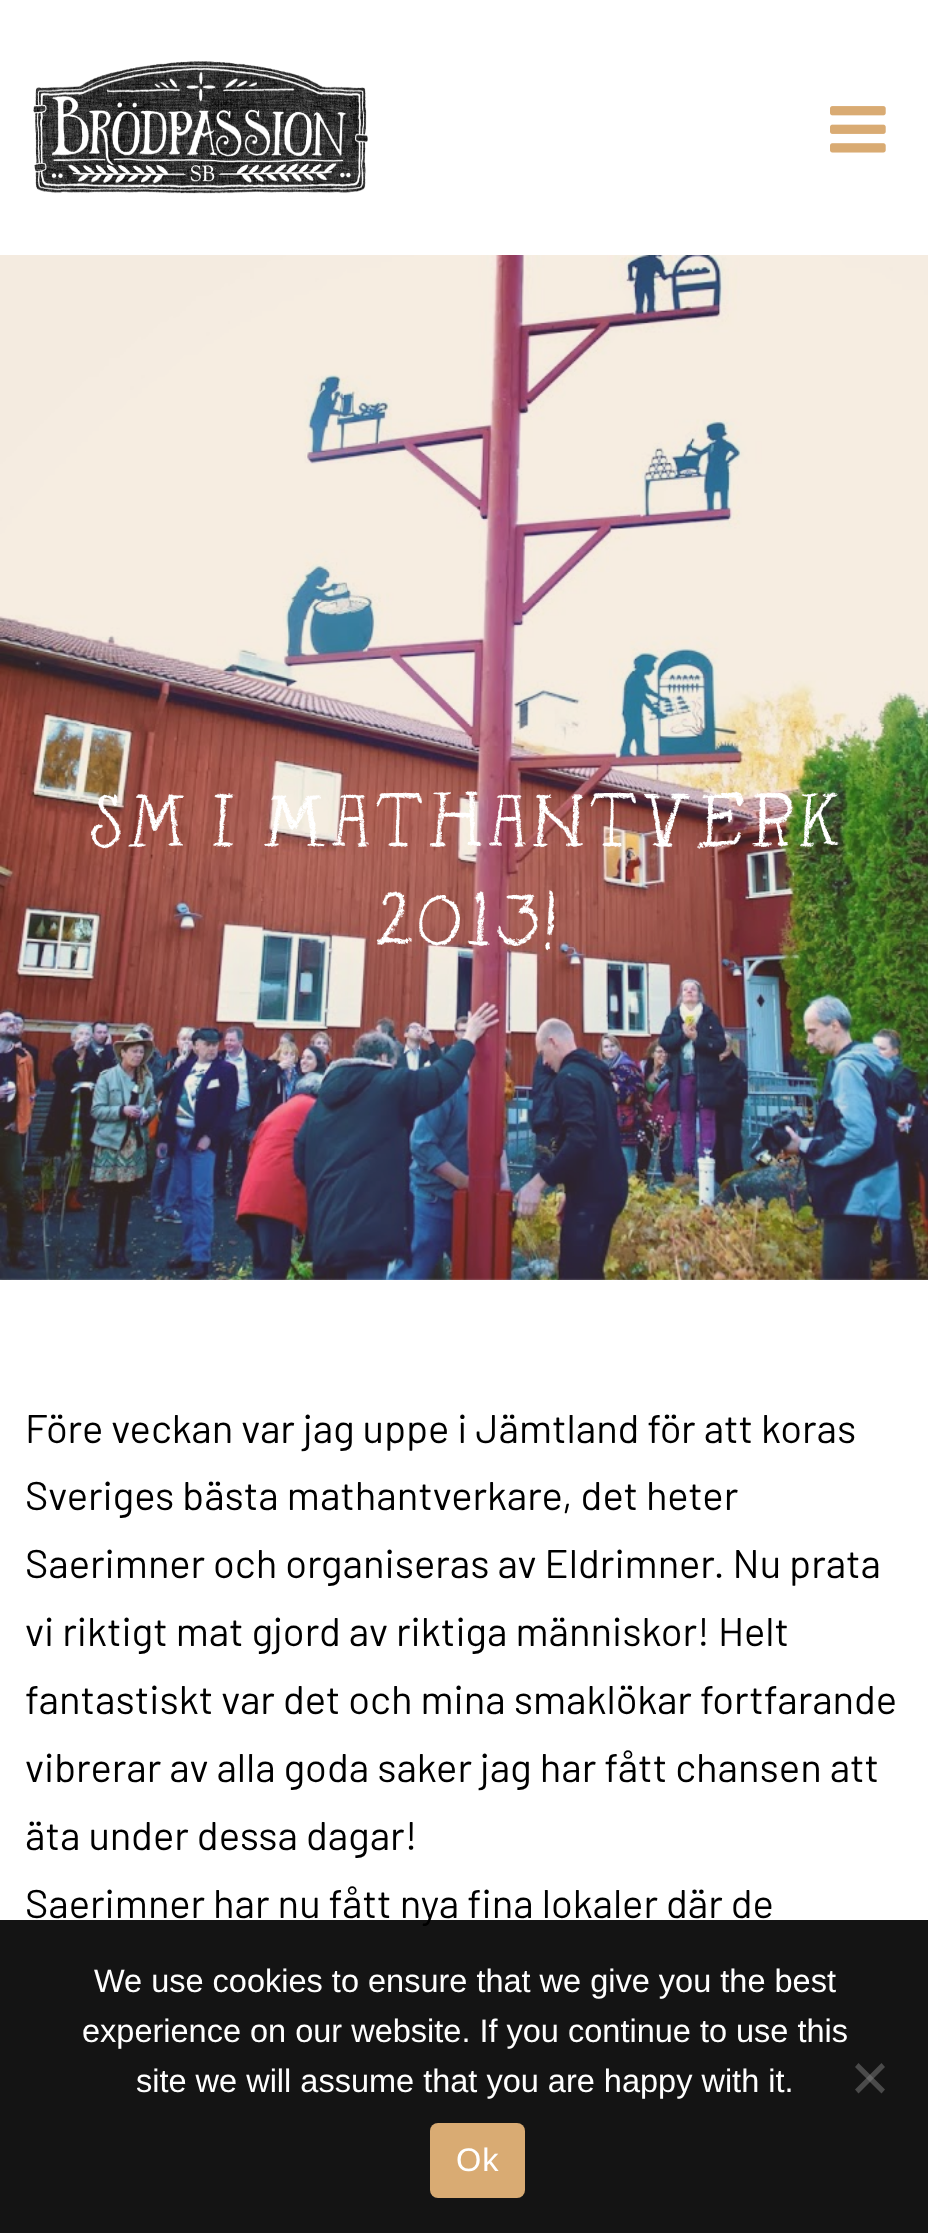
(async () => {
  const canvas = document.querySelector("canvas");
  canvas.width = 928;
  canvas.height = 2233;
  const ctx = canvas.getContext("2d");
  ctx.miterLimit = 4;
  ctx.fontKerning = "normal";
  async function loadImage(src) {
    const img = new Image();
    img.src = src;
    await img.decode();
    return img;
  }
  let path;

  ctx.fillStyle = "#ffffff";
  ctx.fillRect(0, 0, 928, 2233);
  ctx.drawImage(await loadImage("img/1.png"), 33, 61, 335, 133);
  ctx.drawImage(await loadImage("img/2.png"), 830, 106, 56, 47);
  ctx.drawImage(await loadImage("img/3.png"), 0, 255, 928, 1025);
  ctx.font = "75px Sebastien";
  ctx.fillText("Sm i Mathantverk", 87, 847);
  ctx.fillText("2013!", 373, 946);
  ctx.font = "40px Barlow";
  ctx.fillStyle = "#000000";
  for (const [text, x, y] of [
    ["Före veckan var jag uppe i Jämtland för att koras", 25, 1443],
    ["Sveriges bästa mathantverkare, det heter", 25, 1510],
    ["Saerimner och organiseras av Eldrimner. Nu prata", 25, 1578],
    ["vi riktigt mat gjord av riktiga människor! Helt", 25, 1646],
    ["fantastiskt var det och mina smaklökar fortfarande", 25, 1714],
    ["vibrerar av alla goda saker jag har fått chansen att", 25, 1782],
    ["äta under dessa dagar!", 25, 1850],
    ["Saerimner har nu fått nya fina lokaler där de", 25, 1918],
  ]) {
    ctx.fillText(text, x, y);
  }
  ctx.fillStyle = "rgba(0, 0, 0, 0.92)";
  ctx.fillRect(0, 1920, 928, 313);
  ctx.font = "32.5px Liberation Sans";
  ctx.fillStyle = "#ffffff";
  for (const [text, x, y] of [
    ["We use cookies to ensure that we give you the best", 94, 1992],
    ["experience on our website. If you continue to use this", 82, 2042],
    ["site we will assume that you are happy with it.", 136, 2092],
  ]) {
    ctx.fillText(text, x, y);
  }
  ctx.fillStyle = "rgba(128, 128, 128, 0.5)";
  path = new Path2D("M881.5 2063L885 2067L858.5 2093.5L855 2089.5Z");
  ctx.fill(path);
  path = new Path2D("M855 2067L858.5 2063L885 2089.5L881.5 2093.5Z");
  ctx.fill(path);
  ctx.fillStyle = "#d9ab73";
  ctx.beginPath();
  ctx.roundRect(430, 2123, 95, 75, 8);
  ctx.fill();
  ctx.letterSpacing = "1px";
  ctx.fillStyle = "#ffffff";
  ctx.fillText("Ok", 456, 2171);
})();
